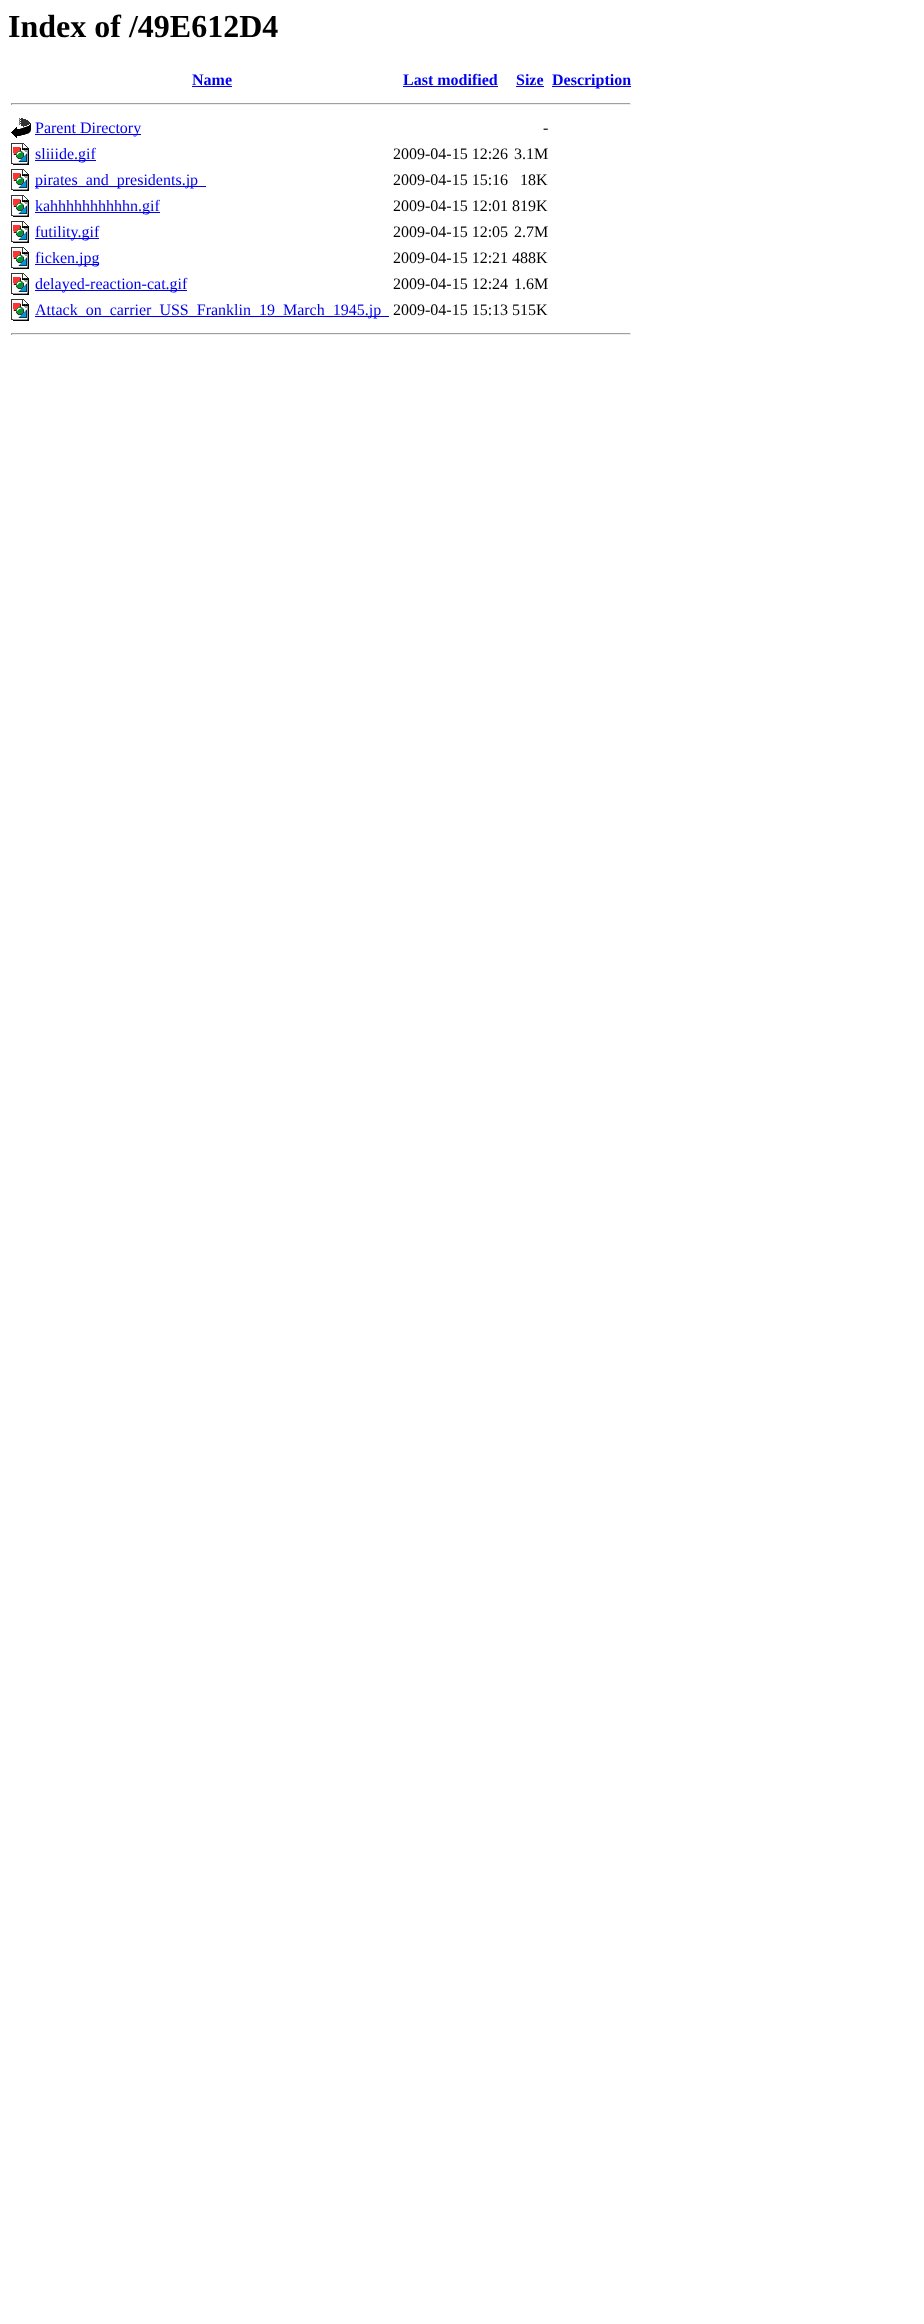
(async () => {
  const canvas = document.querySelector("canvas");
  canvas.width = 924;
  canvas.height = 2324;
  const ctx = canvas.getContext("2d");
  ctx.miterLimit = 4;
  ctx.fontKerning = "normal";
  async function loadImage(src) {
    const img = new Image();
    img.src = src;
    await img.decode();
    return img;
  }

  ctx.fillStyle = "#ffffff";
  ctx.fillRect(0, 0, 924, 2324);
  for (const [x, y, w, h, color] of [
    [192, 86, 40, 1, "#0000ee"],
    [403, 86, 95, 1, "#0000ee"],
    [516, 86, 28, 1, "#0000ee"],
    [552, 86, 79, 1, "#0000ee"],
    [11, 103, 620, 1, "#9f9f9f"],
    [630, 103, 1, 2, "#eeeeee"],
    [11, 104, 620, 1, "#eeeeee"],
    [11, 103, 1, 2, "#9f9f9f"],
  ]) {
    ctx.fillStyle = color;
    ctx.fillRect(x, y, w, h);
  }
  ctx.drawImage(await loadImage("img/1.png"), 11, 118, 20, 20);
  ctx.fillStyle = "#0000ee";
  ctx.fillRect(35, 134, 106, 1);
  ctx.drawImage(await loadImage("img/2.png"), 11, 143, 18, 22);
  ctx.fillRect(35, 160, 61, 1);
  ctx.drawImage(await loadImage("img/2.png"), 11, 169, 18, 22);
  ctx.fillRect(35, 186, 171, 1);
  ctx.drawImage(await loadImage("img/2.png"), 11, 195, 18, 22);
  ctx.fillRect(35, 212, 125, 1);
  ctx.drawImage(await loadImage("img/2.png"), 11, 221, 18, 22);
  ctx.fillRect(35, 238, 64, 1);
  ctx.drawImage(await loadImage("img/2.png"), 11, 247, 18, 22);
  ctx.fillRect(35, 264, 64, 1);
  ctx.drawImage(await loadImage("img/2.png"), 11, 273, 18, 22);
  ctx.fillRect(35, 290, 152, 1);
  ctx.drawImage(await loadImage("img/2.png"), 11, 299, 18, 22);
  for (const [x, y, w, h, color] of [
    [35, 316, 354, 1, "#0000ee"],
    [11, 333, 620, 1, "#9f9f9f"],
    [630, 333, 1, 2, "#eeeeee"],
    [11, 334, 620, 1, "#eeeeee"],
    [11, 333, 1, 2, "#9f9f9f"],
  ]) {
    ctx.fillStyle = color;
    ctx.fillRect(x, y, w, h);
  }
  ctx.font = "bold 32px Liberation Serif";
  ctx.fillStyle = "#000000";
  ctx.fillText("Index of /49E612D4", 8, 37);
  ctx.font = "bold 16px Liberation Serif";
  ctx.fillStyle = "#0000ee";
  for (const [text, x, y] of [
    ["Name", 192, 85],
    ["Last modified", 403, 85],
    ["Size", 516, 85],
    ["Description", 552, 85],
  ]) {
    ctx.fillText(text, x, y);
  }
  ctx.font = "16px Liberation Serif";
  ctx.fillText("Parent Directory", 35, 133);
  ctx.fillStyle = "#000000";
  ctx.fillText("-", 543, 133);
  ctx.fillStyle = "#0000ee";
  ctx.fillText("sliiide.gif", 35, 159);
  ctx.fillStyle = "#000000";
  ctx.fillText("2009-04-15 12:26", 393, 159);
  ctx.fillText("3.1M", 514, 159);
  ctx.fillStyle = "#0000ee";
  ctx.fillText("pirates_and_presidents.jp", 35, 185);
  ctx.fillStyle = "#000000";
  ctx.fillText("2009-04-15 15:16", 393, 185);
  ctx.fillText("18K", 520, 185);
  ctx.fillStyle = "#0000ee";
  ctx.fillText("kahhhhhhhhhhn.gif", 35, 211);
  ctx.fillStyle = "#000000";
  ctx.fillText("2009-04-15 12:01 819K", 393, 211);
  ctx.fillStyle = "#0000ee";
  ctx.fillText("futility.gif", 35, 237);
  ctx.fillStyle = "#000000";
  ctx.fillText("2009-04-15 12:05", 393, 237);
  ctx.fillText("2.7M", 514, 237);
  ctx.fillStyle = "#0000ee";
  ctx.fillText("ficken.jpg", 35, 263);
  ctx.fillStyle = "#000000";
  ctx.fillText("2009-04-15 12:21 488K", 393, 263);
  ctx.fillStyle = "#0000ee";
  ctx.fillText("delayed-reaction-cat.gif", 35, 289);
  ctx.fillStyle = "#000000";
  ctx.fillText("2009-04-15 12:24", 393, 289);
  ctx.fillText("1.6M", 514, 289);
  ctx.fillStyle = "#0000ee";
  ctx.fillText("Attack_on_carrier_USS_Franklin_19_March_1945.jp", 35, 315);
  ctx.fillStyle = "#000000";
  ctx.fillText("2009-04-15 15:13 515K", 393, 315);
})();
